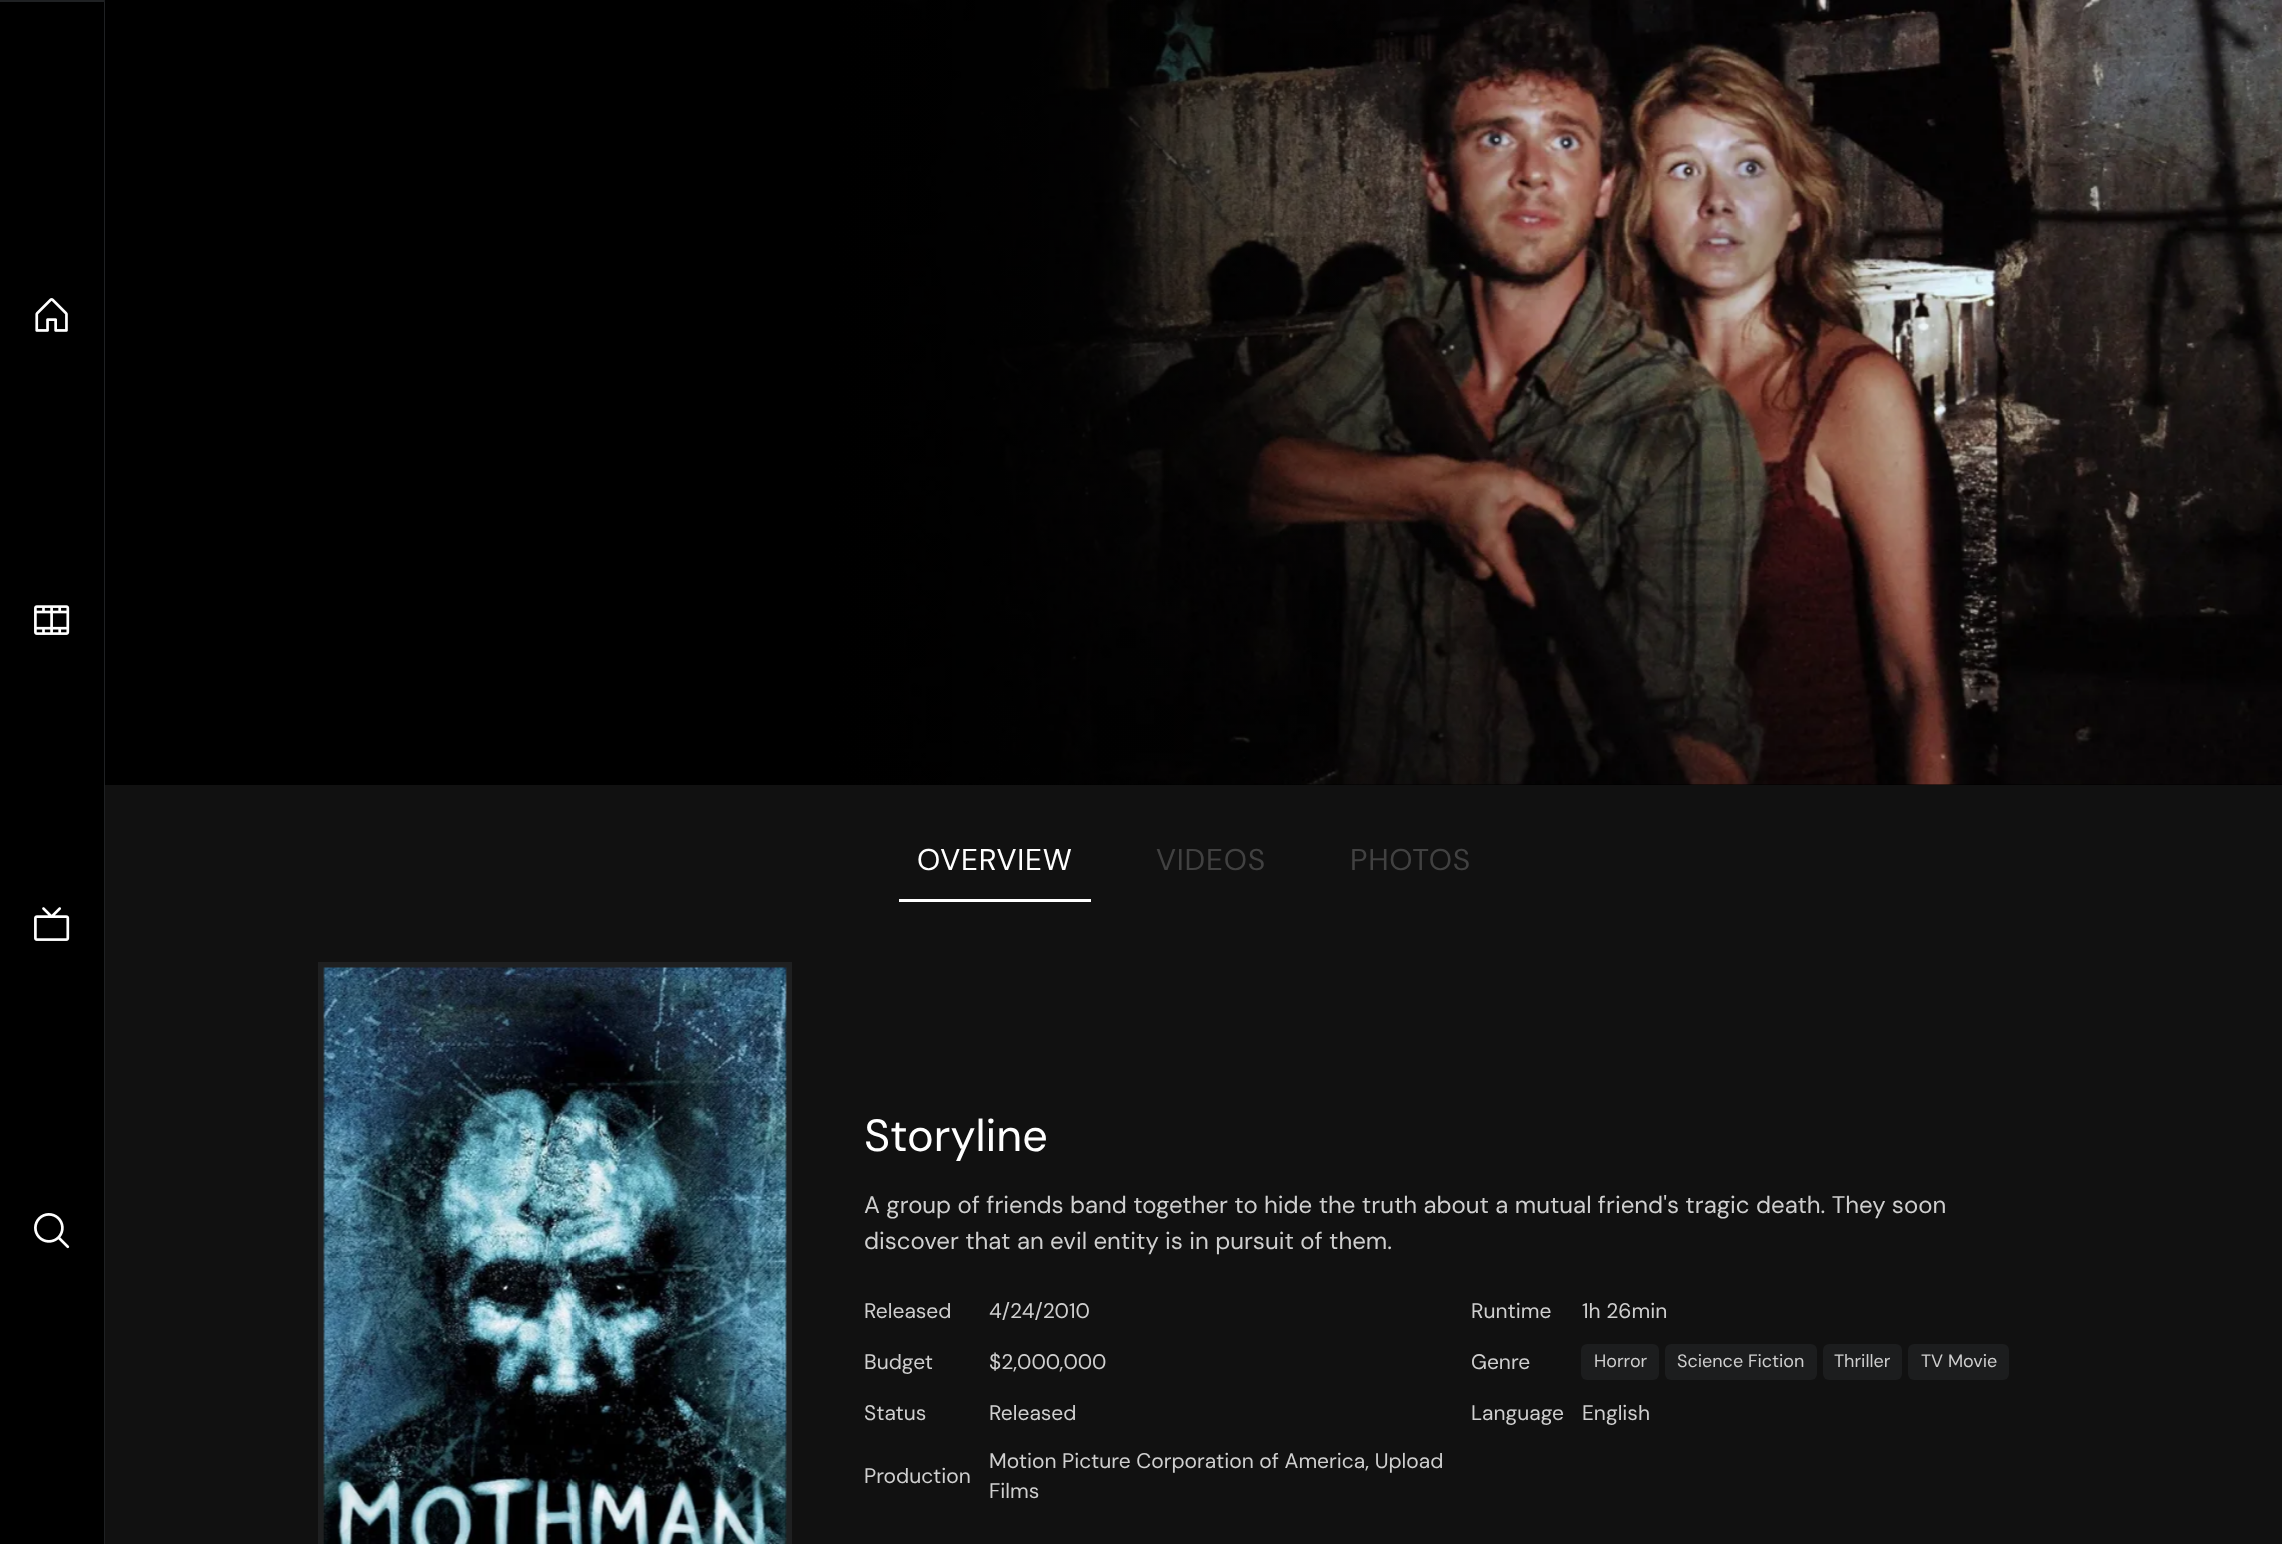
(async () => {
  const canvas = document.querySelector("canvas");
  canvas.width = 2282;
  canvas.height = 1544;
  const ctx = canvas.getContext("2d");
  ctx.miterLimit = 4;
  ctx.fontKerning = "normal";
  async function loadImage(src) {
    const img = new Image();
    img.src = src;
    await img.decode();
    return img;
  }
  let gradient, path;

  ctx.fillStyle = "#111111";
  ctx.fillRect(0, 0, 2282, 1544);
  ctx.fillStyle = "#000000";
  ctx.fillRect(0, 0, 105, 1544);
  ctx.fillStyle = "#1f2123";
  path = new Path2D("M0 0H105L104 2H0Z");
  ctx.fill(path);
  ctx.fillStyle = "rgba(156, 163, 175, 0.2)";
  path = new Path2D("M105 0V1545H104V2Z");
  ctx.fill(path);
  ctx.drawImage(await loadImage("img/1.png"), 35, 298, 33, 34);
  ctx.drawImage(await loadImage("img/2.png"), 34, 605, 36, 30);
  ctx.drawImage(await loadImage("img/3.png"), 34, 907, 36, 34);
  ctx.drawImage(await loadImage("img/4.png"), 34, 1213, 36, 36);
  ctx.fillStyle = "#000000";
  ctx.fillRect(835, 784, 1447, 1);
  ctx.drawImage(await loadImage("img/5.png"), 835, 0, 1447, 785);
  gradient = ctx.createLinearGradient(105, 392, 1557, 392);
  gradient.addColorStop(0, "#000000");
  gradient.addColorStop(0.5, "#000000");
  gradient.addColorStop(1, "rgba(0, 0, 0, 0)");
  ctx.fillStyle = gradient;
  ctx.fillRect(105, 0, 1436, 785);
  ctx.fillStyle = "#ffffff";
  ctx.fillRect(899, 899, 192, 3);
  ctx.strokeStyle = "#1f2021";
  ctx.lineWidth = 6;
  ctx.strokeRect(321, 965, 468, 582);
  ctx.drawImage(await loadImage("img/6.png"), 323, 967, 464, 577);
  ctx.fillStyle = "#1c1d1e";
  ctx.beginPath();
  ctx.roundRect(1581, 1344, 78, 36, 6);
  ctx.fill();
  ctx.beginPath();
  ctx.roundRect(1665, 1344, 152, 36, 6);
  ctx.fill();
  ctx.beginPath();
  ctx.roundRect(1823, 1344, 79, 36, 6);
  ctx.fill();
  ctx.beginPath();
  ctx.roundRect(1908, 1344, 101, 36, 6);
  ctx.fill();
  ctx.letterSpacing = "0.75px";
  ctx.font = "30px DM Sans";
  ctx.fillStyle = "#ffffff";
  ctx.fillText("OVERVIEW", 917, 870);
  ctx.fillStyle = "#414141";
  ctx.fillText("VIDEOS", 1156, 870);
  ctx.fillText("PHOTOS", 1350, 870);
  ctx.letterSpacing = "0px";
  ctx.font = "45px DM Sans";
  ctx.fillStyle = "#ffffff";
  ctx.fillText("Storyline", 864, 1151);
  ctx.font = "24px DM Sans";
  ctx.fillStyle = "#cfcfcf";
  ctx.fillText("A group of friends band together to hide the truth about a mutual friend's tragic death. They soon", 864, 1213);
  ctx.fillText("discover that an evil entity is in pursuit of them.", 864, 1249);
  ctx.font = "21px DM Sans";
  for (const [text, x, y] of [
    ["Released", 864, 1318],
    ["4/24/2010", 989, 1318],
    ["Runtime", 1471, 1318],
    ["1h 26min", 1582, 1318],
    ["Budget", 864, 1369],
    ["$2,000,000", 989, 1369],
    ["Genre", 1471, 1369],
  ]) {
    ctx.fillText(text, x, y);
  }
  ctx.font = "18px DM Sans";
  for (const [text, x, y] of [
    ["Horror", 1594, 1367],
    ["Science Fiction", 1677, 1367],
    ["Thriller", 1834, 1367],
    ["TV Movie", 1921, 1367],
  ]) {
    ctx.fillText(text, x, y);
  }
  ctx.font = "21px DM Sans";
  for (const [text, x, y] of [
    ["Status", 864, 1420],
    ["Released", 989, 1420],
    ["Language", 1471, 1420],
    ["English", 1582, 1420],
    ["Production", 864, 1483],
    ["Motion Picture Corporation of America, Upload", 989, 1468],
    ["Films", 989, 1498],
  ]) {
    ctx.fillText(text, x, y);
  }
})();
